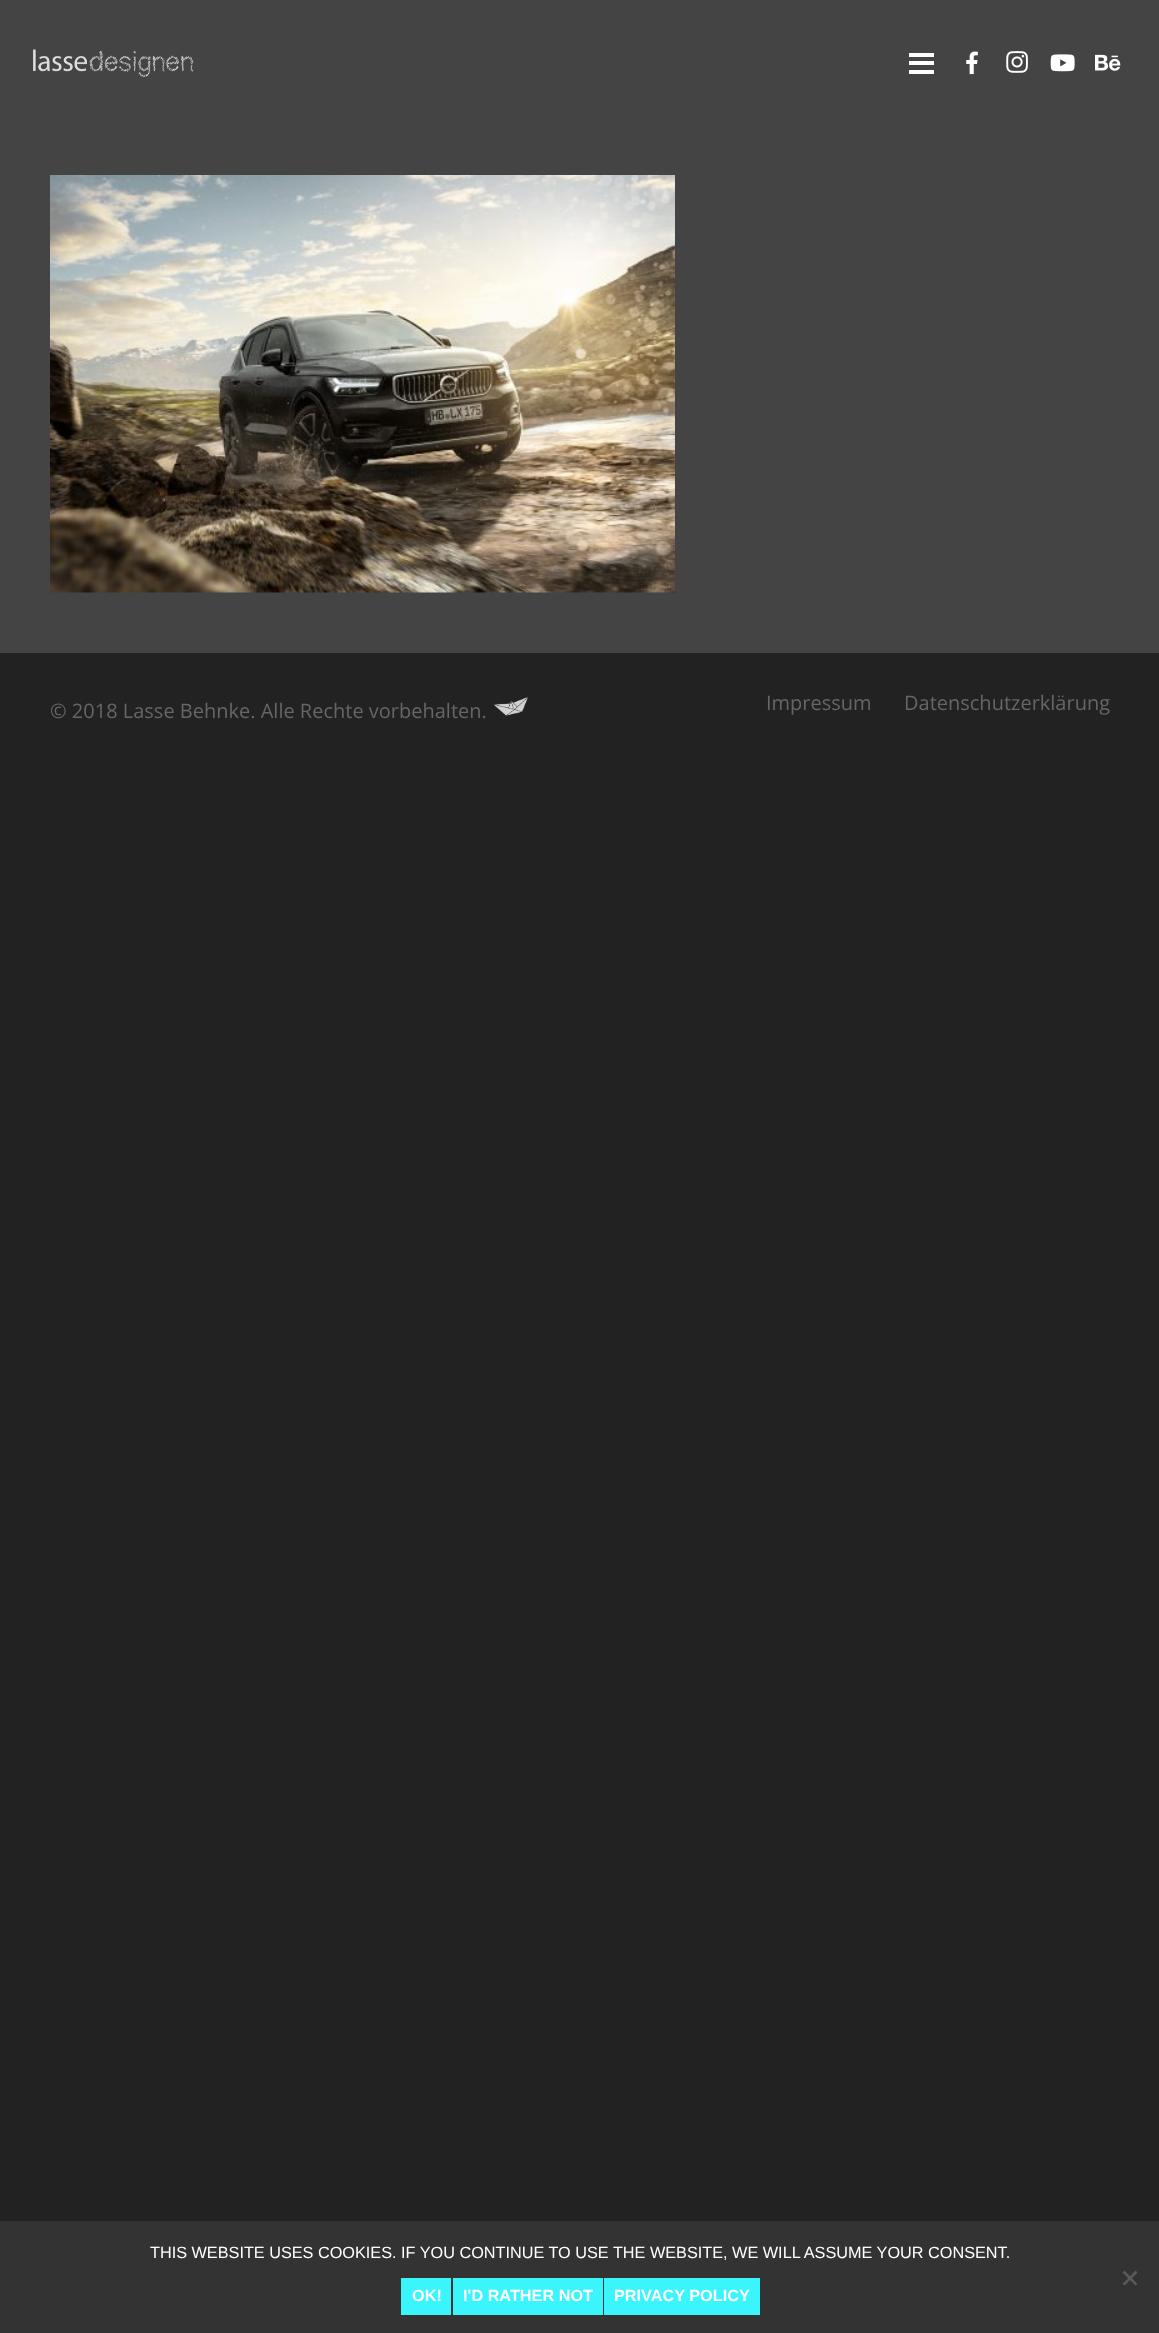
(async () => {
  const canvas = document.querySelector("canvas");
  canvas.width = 1159;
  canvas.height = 2333;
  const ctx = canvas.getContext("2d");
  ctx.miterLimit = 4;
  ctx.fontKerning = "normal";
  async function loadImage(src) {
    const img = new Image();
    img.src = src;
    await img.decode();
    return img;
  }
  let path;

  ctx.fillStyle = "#222222";
  ctx.fillRect(0, 0, 1159, 2333);
  ctx.fillStyle = "#444444";
  ctx.fillRect(0, 0, 1159, 653);
  ctx.drawImage(await loadImage("img/1.png"), 33, 49, 161, 28);
  for (const [x, y, w, h, color] of [
    [909, 61, 25, 4, "#ffffff"],
    [909, 53, 25, 4, "#ffffff"],
    [909, 70, 25, 4, "#ffffff"],
  ]) {
    ctx.fillStyle = color;
    ctx.fillRect(x, y, w, h);
  }
  ctx.drawImage(await loadImage("img/2.png"), 966, 51, 12, 24);
  ctx.drawImage(await loadImage("img/3.png"), 1006, 51, 22, 22);
  ctx.drawImage(await loadImage("img/4.png"), 1050, 54, 25, 18);
  ctx.drawImage(await loadImage("img/5.png"), 1095, 54, 26, 17);
  ctx.drawImage(await loadImage("img/6.png"), 50, 175, 625, 418);
  ctx.drawImage(await loadImage("img/7.png"), 494, 697, 34, 19);
  ctx.fillStyle = "#333333";
  ctx.fillRect(0, 2221, 1159, 112);
  ctx.fillStyle = "#5a5a5a";
  path = new Path2D("M1135.5 2270.5L1137.5 2272.5L1124.5 2285.5L1122.5 2284Z");
  ctx.fill(path);
  path = new Path2D("M1122.5 2272.5L1124.5 2270.5L1137.5 2284L1135.5 2285.5Z");
  ctx.fill(path);
  for (const [x, y, w, h, color] of [
    [401, 2278, 50, 37, "#3af5fc"],
    [453, 2278, 150, 37, "#3af5fc"],
    [604, 2278, 156, 37, "#3af5fc"],
  ]) {
    ctx.fillStyle = color;
    ctx.fillRect(x, y, w, h);
  }
  ctx.font = "20px Open Sans";
  ctx.fillStyle = "#666666";
  for (const [text, x, y] of [
    ["© 2018 Lasse Behnke. Alle Rechte vorbehalten.", 50, 718],
    ["Impressum", 766, 710],
    ["Datenschutzerklärung", 904, 710],
  ]) {
    ctx.fillText(text, x, y);
  }
  ctx.font = "16.25px Liberation Sans";
  ctx.fillStyle = "#ffffff";
  ctx.fillText("THIS WEBSITE USES COOKIES. IF YOU CONTINUE TO USE THE WEBSITE, WE WILL ASSUME YOUR CONSENT.", 150, 2258);
  ctx.font = "bold 16.25px Liberation Sans";
  for (const [text, x, y] of [
    ["OK!", 412, 2301],
    ["I'D RATHER NOT", 463, 2301],
    ["PRIVACY POLICY", 614, 2301],
  ]) {
    ctx.fillText(text, x, y);
  }
})();
